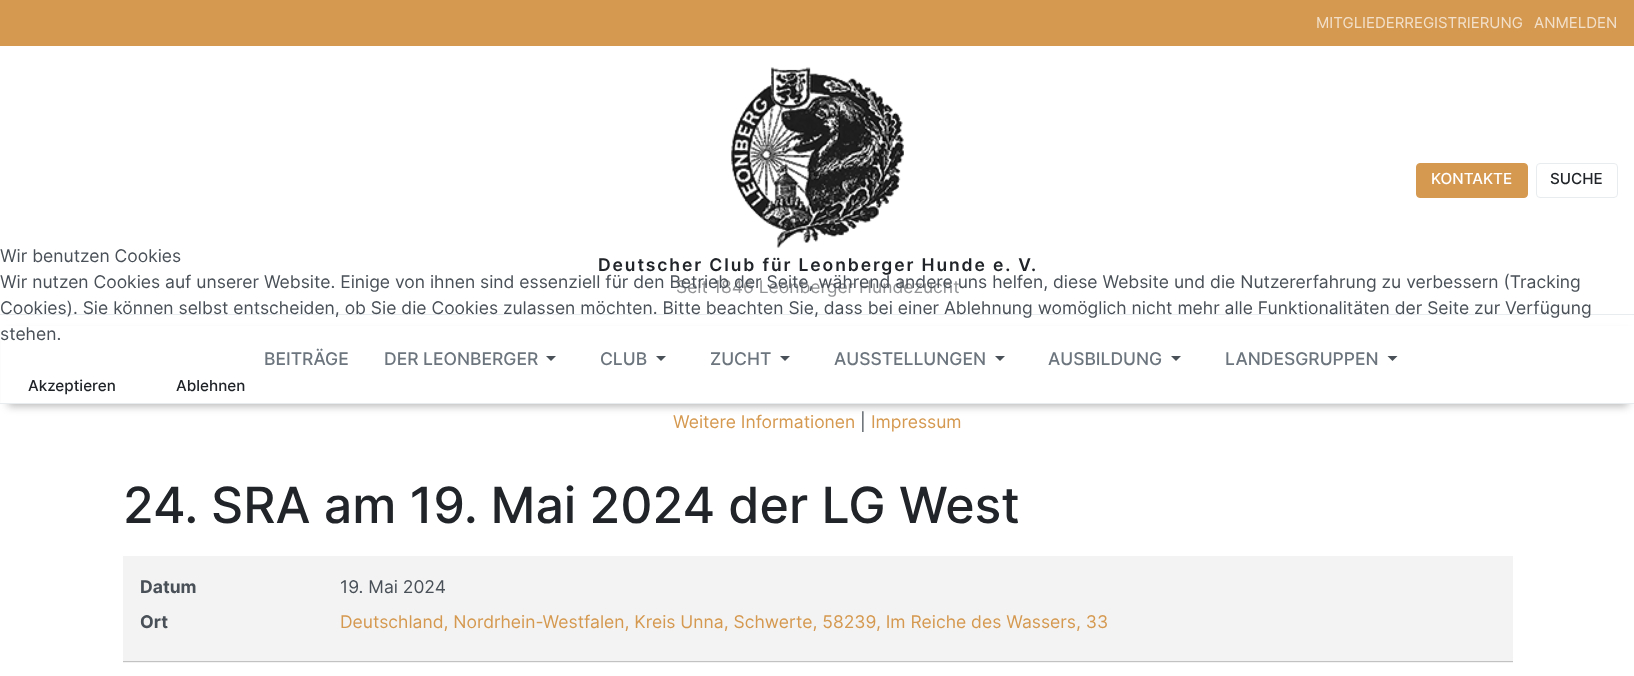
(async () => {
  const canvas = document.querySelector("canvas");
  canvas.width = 1634;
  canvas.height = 676;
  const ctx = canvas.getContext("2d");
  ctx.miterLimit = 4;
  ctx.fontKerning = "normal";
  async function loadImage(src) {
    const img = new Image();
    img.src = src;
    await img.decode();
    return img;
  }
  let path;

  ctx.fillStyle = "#ffffff";
  ctx.fillRect(0, 0, 1634, 676);
  ctx.fillStyle = "#d59950";
  ctx.fillRect(0, 0, 1634, 46);
  ctx.fillStyle = "#e9ecef";
  ctx.fillRect(0, 314, 1634, 1);
  ctx.fillStyle = "#d59950";
  ctx.beginPath();
  ctx.roundRect(1416.5, 163.5, 111, 34, 3.5);
  ctx.fill();
  ctx.strokeStyle = "#d59950";
  ctx.stroke();
  ctx.beginPath();
  ctx.roundRect(1536.5, 163.5, 81, 34, 3.5);
  ctx.strokeStyle = "#e9ecef";
  ctx.stroke();
  ctx.drawImage(await loadImage("img/1.png"), 731, 67, 173, 181);
  ctx.fillStyle = "rgba(0, 0, 0, 0.29)";
  ctx.filter = "blur(4px)";
  ctx.beginPath();
  ctx.rect(8, 333, 1620, 73);
  ctx.fill();
  ctx.filter = "none";
  ctx.fillStyle = "#ffffff";
  ctx.fillRect(1, 326, 1633, 77);
  ctx.fillStyle = "#e9ecef";
  ctx.fillRect(0, 403, 1634, 1);
  ctx.fillStyle = "#495057";
  path = new Path2D("M546 356H556L551 361Z");
  ctx.fill(path);
  path = new Path2D("M656 356H666L661 361Z");
  ctx.fill(path);
  path = new Path2D("M780 356H790L785 361Z");
  ctx.fill(path);
  path = new Path2D("M995 356H1005L1000 361Z");
  ctx.fill(path);
  path = new Path2D("M1171 356H1181L1176 361Z");
  ctx.fill(path);
  path = new Path2D("M1387.5 356H1397.5L1392.5 361Z");
  ctx.fill(path);
  ctx.fillStyle = "#f3f3f3";
  ctx.fillRect(123, 556, 1390, 107);
  ctx.fillStyle = "#c2c2c2";
  ctx.fillRect(123, 661, 1390, 1);
  ctx.font = "15px Inter";
  ctx.fillStyle = "#f2e0cb";
  ctx.fillText("MITGLIEDERREGISTRIERUNG", 1316, 28);
  ctx.fillText("ANMELDEN", 1534, 28);
  ctx.font = "500 15.25px Inter";
  ctx.fillStyle = "#ffffff";
  ctx.fillText("KONTAKTE", 1431, 184);
  ctx.fillStyle = "#212529";
  ctx.fillText("SUCHE", 1550, 184);
  ctx.letterSpacing = "1.9px";
  ctx.font = "600 17.5px Inter";
  ctx.fillText("Deutscher Club für Leonberger Hunde e. V.", 598, 271);
  ctx.letterSpacing = "0px";
  ctx.font = "17.5px Inter";
  ctx.fillStyle = "#909294";
  ctx.fillText("Seit 1846 Leonberger Hundezucht", 676, 293);
  ctx.font = "500 17.5px Inter";
  ctx.fillStyle = "#6c757d";
  for (const [text, x, y] of [
    ["BEITRÄGE", 264, 365],
    ["DER LEONBERGER", 384, 365],
    ["CLUB", 600, 365],
    ["ZUCHT", 710, 365],
    ["AUSSTELLUNGEN", 834, 365],
    ["AUSBILDUNG", 1048, 365],
    ["LANDESGRUPPEN", 1225, 365],
  ]) {
    ctx.fillText(text, x, y);
  }
  ctx.font = "500 50px Inter";
  ctx.fillStyle = "#212529";
  ctx.fillText("24. SRA am 19. Mai 2024 der LG West", 123, 523);
  ctx.font = "bold 17.5px Inter";
  ctx.fillStyle = "#495057";
  ctx.fillText("Datum", 140, 593);
  ctx.font = "17.5px Inter";
  ctx.fillText("19. Mai 2024", 340, 593);
  ctx.font = "bold 17.5px Inter";
  ctx.fillText("Ort", 140, 628);
  ctx.font = "17.5px Inter";
  ctx.fillStyle = "#d59950";
  ctx.fillText("Deutschland, Nordrhein-Westfalen, Kreis Unna, Schwerte, 58239, Im Reiche des Wassers, 33", 340, 628);
  ctx.fillStyle = "#495057";
  for (const [text, x, y] of [
    ["Wir benutzen Cookies", 0, 262],
    ["Wir nutzen Cookies auf unserer Website. Einige von ihnen sind essenziell für den Betrieb der Seite, während andere uns helfen, diese Website und die Nutzererfahrung zu verbessern (Tracking", 0, 288],
    ["Cookies). Sie können selbst entscheiden, ob Sie die Cookies zulassen möchten. Bitte beachten Sie, dass bei einer Ablehnung womöglich nicht mehr alle Funktionalitäten der Seite zur Verfügung", 0, 314],
    ["stehen.", 0, 340],
  ]) {
    ctx.fillText(text, x, y);
  }
  ctx.font = "500 15.25px Inter";
  ctx.fillStyle = "#212529";
  ctx.fillText("Akzeptieren", 28, 391);
  ctx.fillText("Ablehnen", 176, 391);
  ctx.font = "17.5px Inter";
  ctx.fillStyle = "#d59950";
  ctx.fillText("Weitere Informationen", 673, 428);
  ctx.fillStyle = "#495057";
  ctx.fillText("|", 860, 428);
  ctx.fillStyle = "#d59950";
  ctx.fillText("Impressum", 871, 428);
})();
